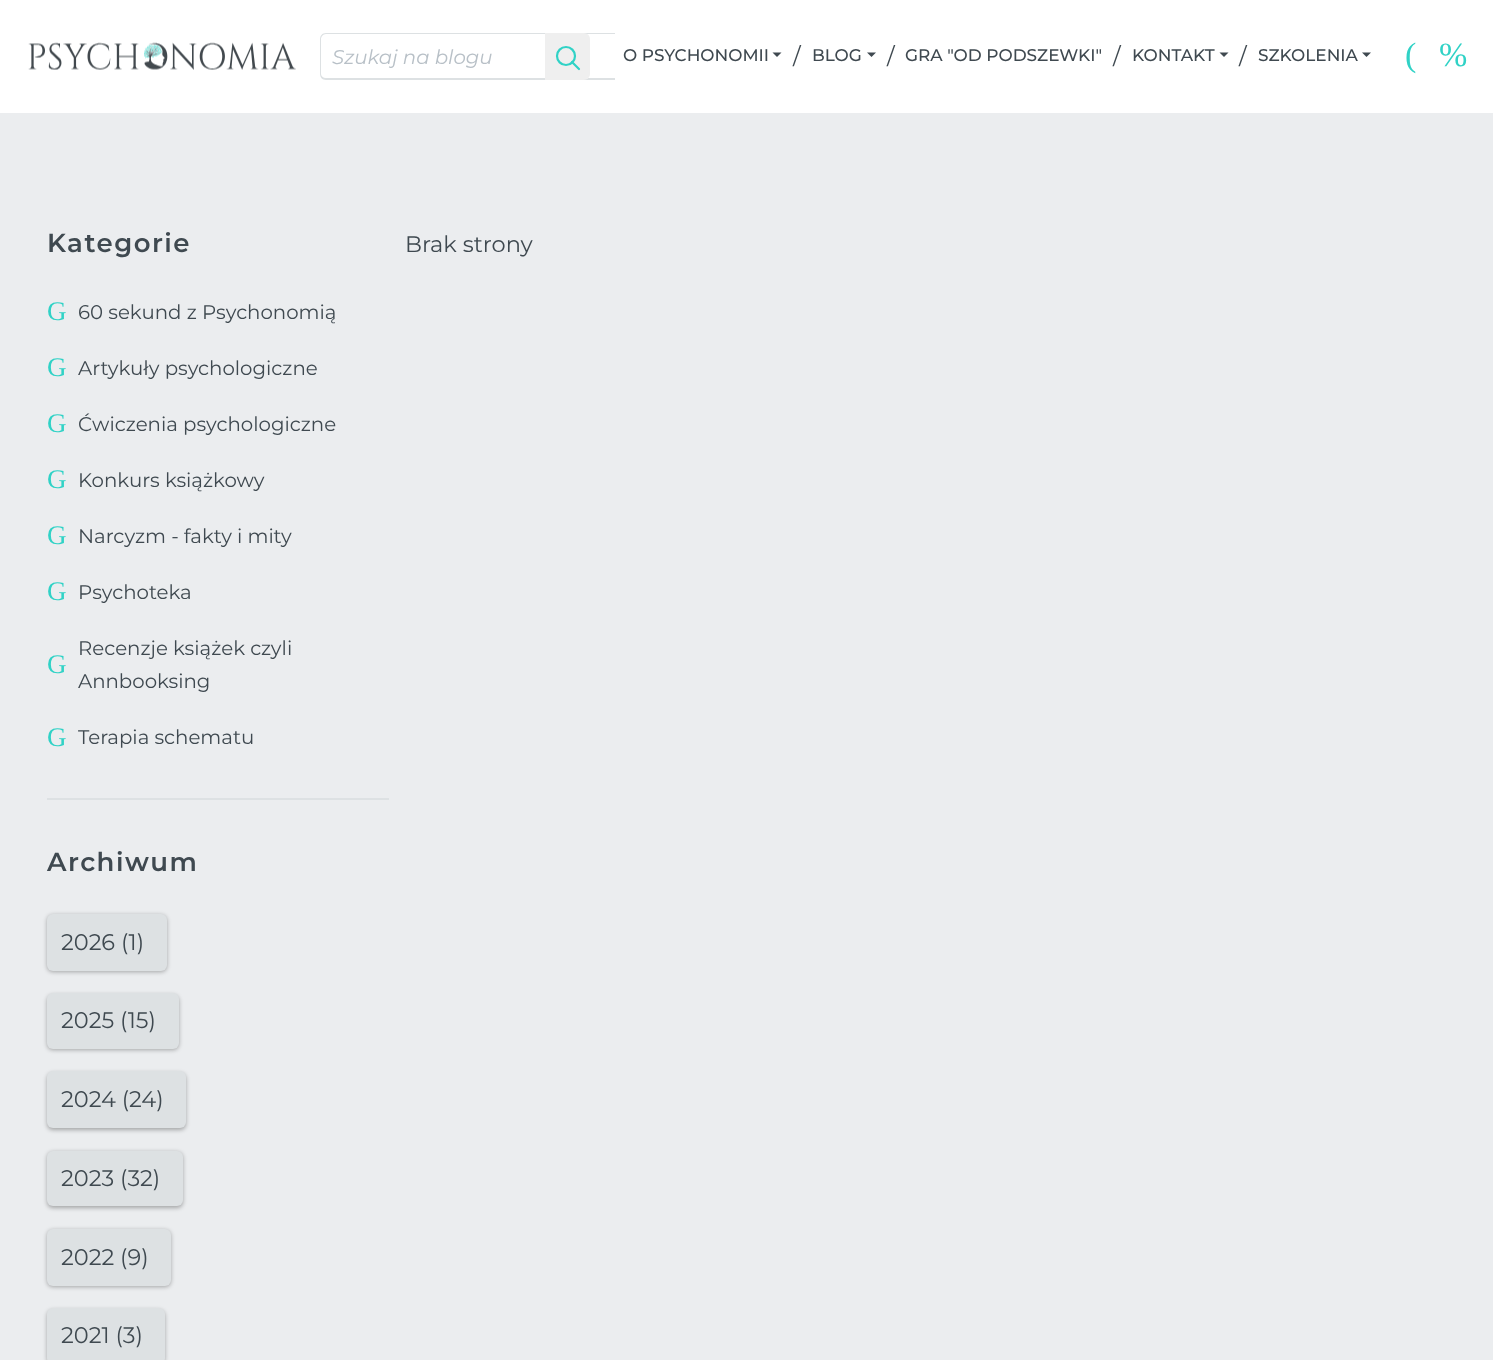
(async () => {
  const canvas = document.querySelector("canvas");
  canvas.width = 1493;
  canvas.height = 1360;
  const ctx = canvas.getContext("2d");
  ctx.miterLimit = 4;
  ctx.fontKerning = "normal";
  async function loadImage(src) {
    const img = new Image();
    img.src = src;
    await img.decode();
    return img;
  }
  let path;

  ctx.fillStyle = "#ebedef";
  ctx.fillRect(0, 0, 1493, 1360);
  ctx.fillStyle = "#ffffff";
  ctx.fillRect(0, 0, 1493, 113);
  ctx.drawImage(await loadImage("img/1.png"), 28, 42, 268, 28);
  ctx.fillStyle = "#dde1e3";
  path = new Path2D("M326 33H615V80H326C322 80 320 77 320 74V39C320 36 322 33 326 33ZM326 34H615V78H326C323 78 321 76 321 74V39C321 37 323 34 326 34Z");
  ctx.fill(path, "evenodd");
  ctx.fillStyle = "#efefef";
  ctx.beginPath();
  ctx.roundRect(545, 33, 45, 47, [0, 6, 6, 0]);
  ctx.fill();
  ctx.beginPath();
  ctx.arc(566, 56, 9, 0, Math.PI * 2);
  ctx.strokeStyle = "#30d2c6";
  ctx.lineWidth = 2.2;
  ctx.stroke();
  path = new Path2D("M579 69L572 62");
  ctx.lineCap = "round";
  ctx.lineJoin = "round";
  ctx.stroke(path);
  ctx.fillStyle = "#3f4950";
  path = new Path2D("M772.5 52.5H781.5L777 57Z");
  ctx.fill(path);
  path = new Path2D("M867 52.5H876L871.5 57Z");
  ctx.fill(path);
  path = new Path2D("M1219.5 52.5H1228.5L1224 57Z");
  ctx.fill(path);
  path = new Path2D("M1362 52.5H1371L1366.5 57Z");
  ctx.fill(path);
  ctx.fillStyle = "#dde1e3";
  ctx.fillRect(47, 798, 342, 2);
  ctx.fillStyle = "rgba(0, 0, 0, 0.3)";
  ctx.filter = "blur(2px)";
  ctx.beginPath();
  ctx.roundRect(47, 915, 120, 57, 6);
  ctx.fill();
  ctx.filter = "none";
  ctx.fillStyle = "#dde1e3";
  ctx.beginPath();
  ctx.roundRect(47, 914, 120, 57, 6);
  ctx.fill();
  ctx.fillStyle = "rgba(0, 0, 0, 0.3)";
  ctx.filter = "blur(2px)";
  ctx.beginPath();
  ctx.roundRect(47, 995, 132, 55, 6);
  ctx.fill();
  ctx.filter = "none";
  ctx.fillStyle = "#dde1e3";
  ctx.beginPath();
  ctx.roundRect(47, 993, 132, 56, 6);
  ctx.fill();
  ctx.fillStyle = "rgba(0, 0, 0, 0.3)";
  ctx.filter = "blur(2px)";
  ctx.beginPath();
  ctx.roundRect(47, 1073, 139, 57, 6);
  ctx.fill();
  ctx.filter = "none";
  ctx.fillStyle = "#dde1e3";
  ctx.beginPath();
  ctx.roundRect(47, 1071, 139, 57, 6);
  ctx.fill();
  ctx.fillStyle = "rgba(0, 0, 0, 0.3)";
  ctx.filter = "blur(2px)";
  ctx.beginPath();
  ctx.roundRect(47, 1152, 136, 56, 6);
  ctx.fill();
  ctx.filter = "none";
  ctx.fillStyle = "#dde1e3";
  ctx.beginPath();
  ctx.roundRect(47, 1151, 136, 55, 6);
  ctx.fill();
  ctx.fillStyle = "rgba(0, 0, 0, 0.3)";
  ctx.filter = "blur(2px)";
  ctx.beginPath();
  ctx.roundRect(47, 1230, 124, 57, 6);
  ctx.fill();
  ctx.filter = "none";
  ctx.fillStyle = "#dde1e3";
  ctx.beginPath();
  ctx.roundRect(47, 1229, 124, 57, 6);
  ctx.fill();
  ctx.fillStyle = "rgba(0, 0, 0, 0.3)";
  ctx.filter = "blur(2px)";
  ctx.beginPath();
  ctx.roundRect(47, 1310, 118, 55, 6);
  ctx.fill();
  ctx.filter = "none";
  ctx.fillStyle = "#dde1e3";
  ctx.beginPath();
  ctx.roundRect(47, 1308, 118, 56, 6);
  ctx.fill();
  ctx.font = "italic 19.75px Montserrat";
  ctx.fillStyle = "#b8c0c7";
  ctx.fillText("Szukaj na blogu", 332, 64);
  ctx.font = "500 16.9px Montserrat";
  ctx.fillStyle = "#3f4950";
  ctx.fillText("O PSYCHONOMII", 623, 61);
  ctx.font = "22.5px Montserrat";
  ctx.fillText("/", 793, 64);
  ctx.font = "500 16.9px Montserrat";
  ctx.fillText("BLOG", 812, 61);
  ctx.font = "22.5px Montserrat";
  ctx.fillText("/", 887, 64);
  ctx.font = "500 16.9px Montserrat";
  ctx.fillText("GRA \"OD PODSZEWKI\"", 905, 61);
  ctx.font = "22.5px Montserrat";
  ctx.fillText("/", 1113, 64);
  ctx.font = "500 16.9px Montserrat";
  ctx.fillText("KONTAKT", 1132, 61);
  ctx.font = "22.5px Montserrat";
  ctx.fillText("/", 1239, 64);
  ctx.font = "500 16.9px Montserrat";
  ctx.fillText("SZKOLENIA", 1258, 61);
  ctx.font = "34px Liberation Serif";
  ctx.fillStyle = "#30d2c6";
  ctx.fillText("(", 1405, 66);
  ctx.fillText("%", 1439, 66);
  ctx.letterSpacing = "1.5px";
  ctx.font = "600 26px Montserrat";
  ctx.fillStyle = "#3f4950";
  ctx.fillText("Kategorie", 47, 252);
  ctx.letterSpacing = "0px";
  ctx.font = "27px Liberation Serif";
  ctx.fillStyle = "#30d2c6";
  ctx.fillText("G", 47, 320);
  ctx.font = "19.75px Montserrat";
  ctx.fillStyle = "#3f4950";
  ctx.fillText("60 sekund z Psychonomią", 78, 319);
  ctx.font = "27px Liberation Serif";
  ctx.fillStyle = "#30d2c6";
  ctx.fillText("G", 47, 376);
  ctx.font = "19.75px Montserrat";
  ctx.fillStyle = "#3f4950";
  ctx.fillText("Artykuły psychologiczne", 78, 375);
  ctx.font = "27px Liberation Serif";
  ctx.fillStyle = "#30d2c6";
  ctx.fillText("G", 47, 432);
  ctx.font = "19.75px Montserrat";
  ctx.fillStyle = "#3f4950";
  ctx.fillText("Ćwiczenia psychologiczne", 78, 431);
  ctx.font = "27px Liberation Serif";
  ctx.fillStyle = "#30d2c6";
  ctx.fillText("G", 47, 488);
  ctx.font = "19.75px Montserrat";
  ctx.fillStyle = "#3f4950";
  ctx.fillText("Konkurs książkowy", 78, 487);
  ctx.font = "27px Liberation Serif";
  ctx.fillStyle = "#30d2c6";
  ctx.fillText("G", 47, 544);
  ctx.font = "19.75px Montserrat";
  ctx.fillStyle = "#3f4950";
  ctx.fillText("Narcyzm - fakty i mity", 78, 543);
  ctx.font = "27px Liberation Serif";
  ctx.fillStyle = "#30d2c6";
  ctx.fillText("G", 47, 600);
  ctx.font = "19.75px Montserrat";
  ctx.fillStyle = "#3f4950";
  ctx.fillText("Psychoteka", 78, 599);
  ctx.font = "27px Liberation Serif";
  ctx.fillStyle = "#30d2c6";
  ctx.fillText("G", 47, 673);
  ctx.font = "19.75px Montserrat";
  ctx.fillStyle = "#3f4950";
  ctx.fillText("Recenzje książek czyli", 78, 655);
  ctx.fillText("Annbooksing", 78, 688);
  ctx.font = "27px Liberation Serif";
  ctx.fillStyle = "#30d2c6";
  ctx.fillText("G", 47, 746);
  ctx.font = "19.75px Montserrat";
  ctx.fillStyle = "#3f4950";
  ctx.fillText("Terapia schematu", 78, 744);
  ctx.letterSpacing = "1.5px";
  ctx.font = "600 26px Montserrat";
  ctx.fillText("Archiwum", 47, 871);
  ctx.letterSpacing = "0px";
  ctx.font = "22.5px Montserrat";
  for (const [text, x, y] of [
    ["2026 (1)", 61, 950],
    ["2025 (15)", 61, 1028],
    ["2024 (24)", 61, 1107],
    ["2023 (32)", 61, 1186],
    ["2022 (9)", 61, 1265],
    ["2021 (3)", 61, 1343],
    ["Brak strony", 405, 252],
  ]) {
    ctx.fillText(text, x, y);
  }
})();
